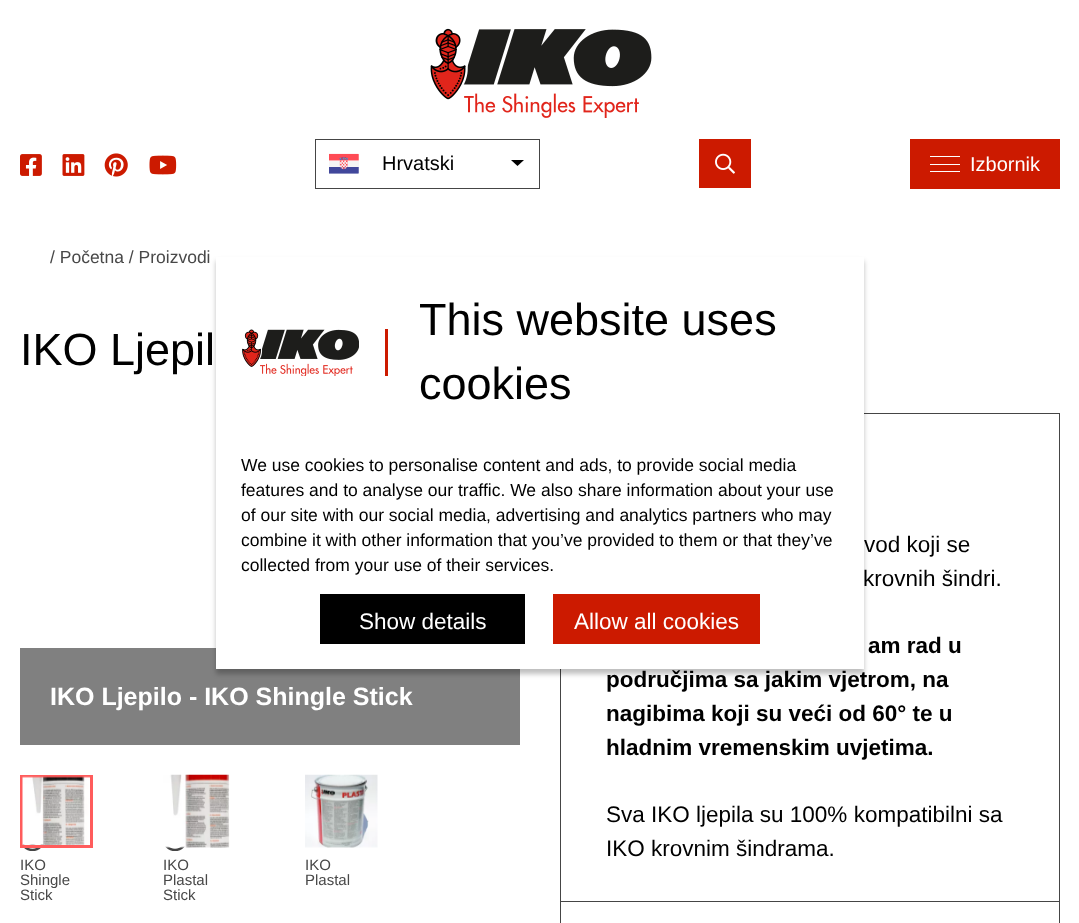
(async () => {
  const canvas = document.querySelector("canvas");
  canvas.width = 1079;
  canvas.height = 923;
  const ctx = canvas.getContext("2d");
  ctx.miterLimit = 4;
  ctx.fontKerning = "normal";
  async function loadImage(src) {
    const img = new Image();
    img.src = src;
    await img.decode();
    return img;
  }
  let path;

  ctx.fillStyle = "#ffffff";
  ctx.fillRect(0, 0, 1079, 923);
  ctx.drawImage(await loadImage("img/1.png"), 430, 28, 222, 90);
  ctx.drawImage(await loadImage("img/2.png"), 20, 154, 22, 22);
  ctx.drawImage(await loadImage("img/3.png"), 62, 154, 23, 22);
  ctx.drawImage(await loadImage("img/4.png"), 104, 153, 24, 24);
  ctx.drawImage(await loadImage("img/5.png"), 149, 155, 28, 20);
  ctx.strokeStyle = "#454545";
  ctx.strokeRect(315.5, 139.5, 224, 49);
  ctx.drawImage(await loadImage("img/6.png"), 329, 153, 30, 21);
  ctx.fillStyle = "#000000";
  path = new Path2D("M511 160H524L517.5 166Z");
  ctx.fill(path);
  ctx.fillStyle = "#cc1a00";
  ctx.fillRect(699, 139, 52, 49);
  ctx.drawImage(await loadImage("img/7.png"), 715, 153, 20, 21);
  for (const [x, y, w, h, color] of [
    [910, 139, 150, 50, "#cc1a00"],
    [930, 164, 30, 1, "#ffffff"],
    [930, 156, 30, 1, "#ffffff"],
    [930, 171, 30, 1, "#ffffff"],
    [20, 648, 500, 97, "#808080"],
  ]) {
    ctx.fillStyle = color;
    ctx.fillRect(x, y, w, h);
  }
  ctx.drawImage(await loadImage("img/8.png"), 23, 844, 21, 7);
  ctx.strokeStyle = "#ff5c5c";
  ctx.lineWidth = 3;
  ctx.strokeRect(21.5, 776.5, 70, 70);
  ctx.drawImage(await loadImage("img/9.png"), 22, 776, 68, 69);
  ctx.drawImage(await loadImage("img/10.png"), 165, 846, 20, 5);
  ctx.drawImage(await loadImage("img/11.png"), 163, 774, 67, 74);
  ctx.drawImage(await loadImage("img/12.png"), 305, 774, 73, 74);
  ctx.strokeStyle = "#454545";
  ctx.lineWidth = 1;
  ctx.strokeRect(560.5, 413.5, 499, 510);
  ctx.fillStyle = "#454545";
  ctx.fillRect(561, 901, 498, 1);
  ctx.fillStyle = "rgba(0, 0, 0, 0.25)";
  ctx.filter = "blur(2.5px)";
  ctx.beginPath();
  ctx.rect(216, 261, 648, 413);
  ctx.fill();
  ctx.filter = "none";
  ctx.fillStyle = "#ffffff";
  ctx.fillRect(216, 257, 648, 412);
  ctx.fillStyle = "#cc1a00";
  ctx.fillRect(385, 329, 3, 47);
  ctx.drawImage(await loadImage("img/13.png"), 242, 329, 117, 47);
  ctx.fillStyle = "#000000";
  ctx.fillRect(320, 594, 205, 50);
  ctx.fillStyle = "#cc1a00";
  ctx.fillRect(553, 594, 207, 50);
  ctx.font = "20px Liberation Sans";
  ctx.fillStyle = "#000000";
  ctx.fillText("Hrvatski", 382, 170);
  ctx.fillStyle = "#ffffff";
  ctx.fillText("Izbornik", 970, 171);
  ctx.font = "17.5px Liberation Sans";
  ctx.fillStyle = "#484848";
  ctx.fillText("/ Početna / Proizvodi", 50, 263);
  ctx.font = "45px Liberation Sans";
  ctx.fillStyle = "#000000";
  ctx.fillText("IKO Ljepil", 20, 365);
  ctx.font = "bold 25px Liberation Sans";
  ctx.fillStyle = "#ffffff";
  ctx.fillText("IKO Ljepilo - IKO Shingle Stick", 50, 705);
  ctx.font = "15px Liberation Sans";
  ctx.fillStyle = "#484848";
  for (const [text, x, y] of [
    ["IKO", 20, 870],
    ["Shingle", 20, 885],
    ["Stick", 20, 900],
    ["IKO", 163, 870],
    ["Plastal", 163, 885],
    ["Stick", 163, 900],
    ["IKO", 305, 870],
    ["Plastal", 305, 885],
  ]) {
    ctx.fillText(text, x, y);
  }
  ctx.font = "22.5px Liberation Sans";
  ctx.fillStyle = "#000000";
  ctx.fillText("vod koji se", 864, 552);
  ctx.fillText("krovnih šindri.", 863, 586);
  ctx.font = "bold 22.5px Liberation Sans";
  for (const [text, x, y] of [
    ["am rad u", 868, 653],
    ["područjima sa jakim vjetrom, na", 606, 687],
    ["nagibima koji su veći od 60° te u", 606, 721],
    ["hladnim vremenskim uvjetima.", 606, 755],
  ]) {
    ctx.fillText(text, x, y);
  }
  ctx.font = "22.5px Liberation Sans";
  ctx.fillText("Sva IKO ljepila su 100% kompatibilni sa", 606, 822);
  ctx.fillText("IKO krovnim šindrama.", 606, 856);
  ctx.font = "45px Liberation Sans";
  ctx.fillText("This website uses", 419, 335);
  ctx.fillText("cookies", 419, 399);
  ctx.font = "17.5px Liberation Sans";
  for (const [text, x, y] of [
    ["We use cookies to personalise content and ads, to provide social media", 241, 471],
    ["features and to analyse our traffic. We also share information about your use", 241, 496],
    ["of our site with our social media, advertising and analytics partners who may", 241, 521],
    ["combine it with other information that you’ve provided to them or that they’ve", 241, 546],
    ["collected from your use of their services.", 241, 571],
  ]) {
    ctx.fillText(text, x, y);
  }
  ctx.font = "22.5px Liberation Sans";
  ctx.fillStyle = "#ffffff";
  ctx.fillText("Show details", 359, 629);
  ctx.fillText("Allow all cookies", 574, 629);
})();
